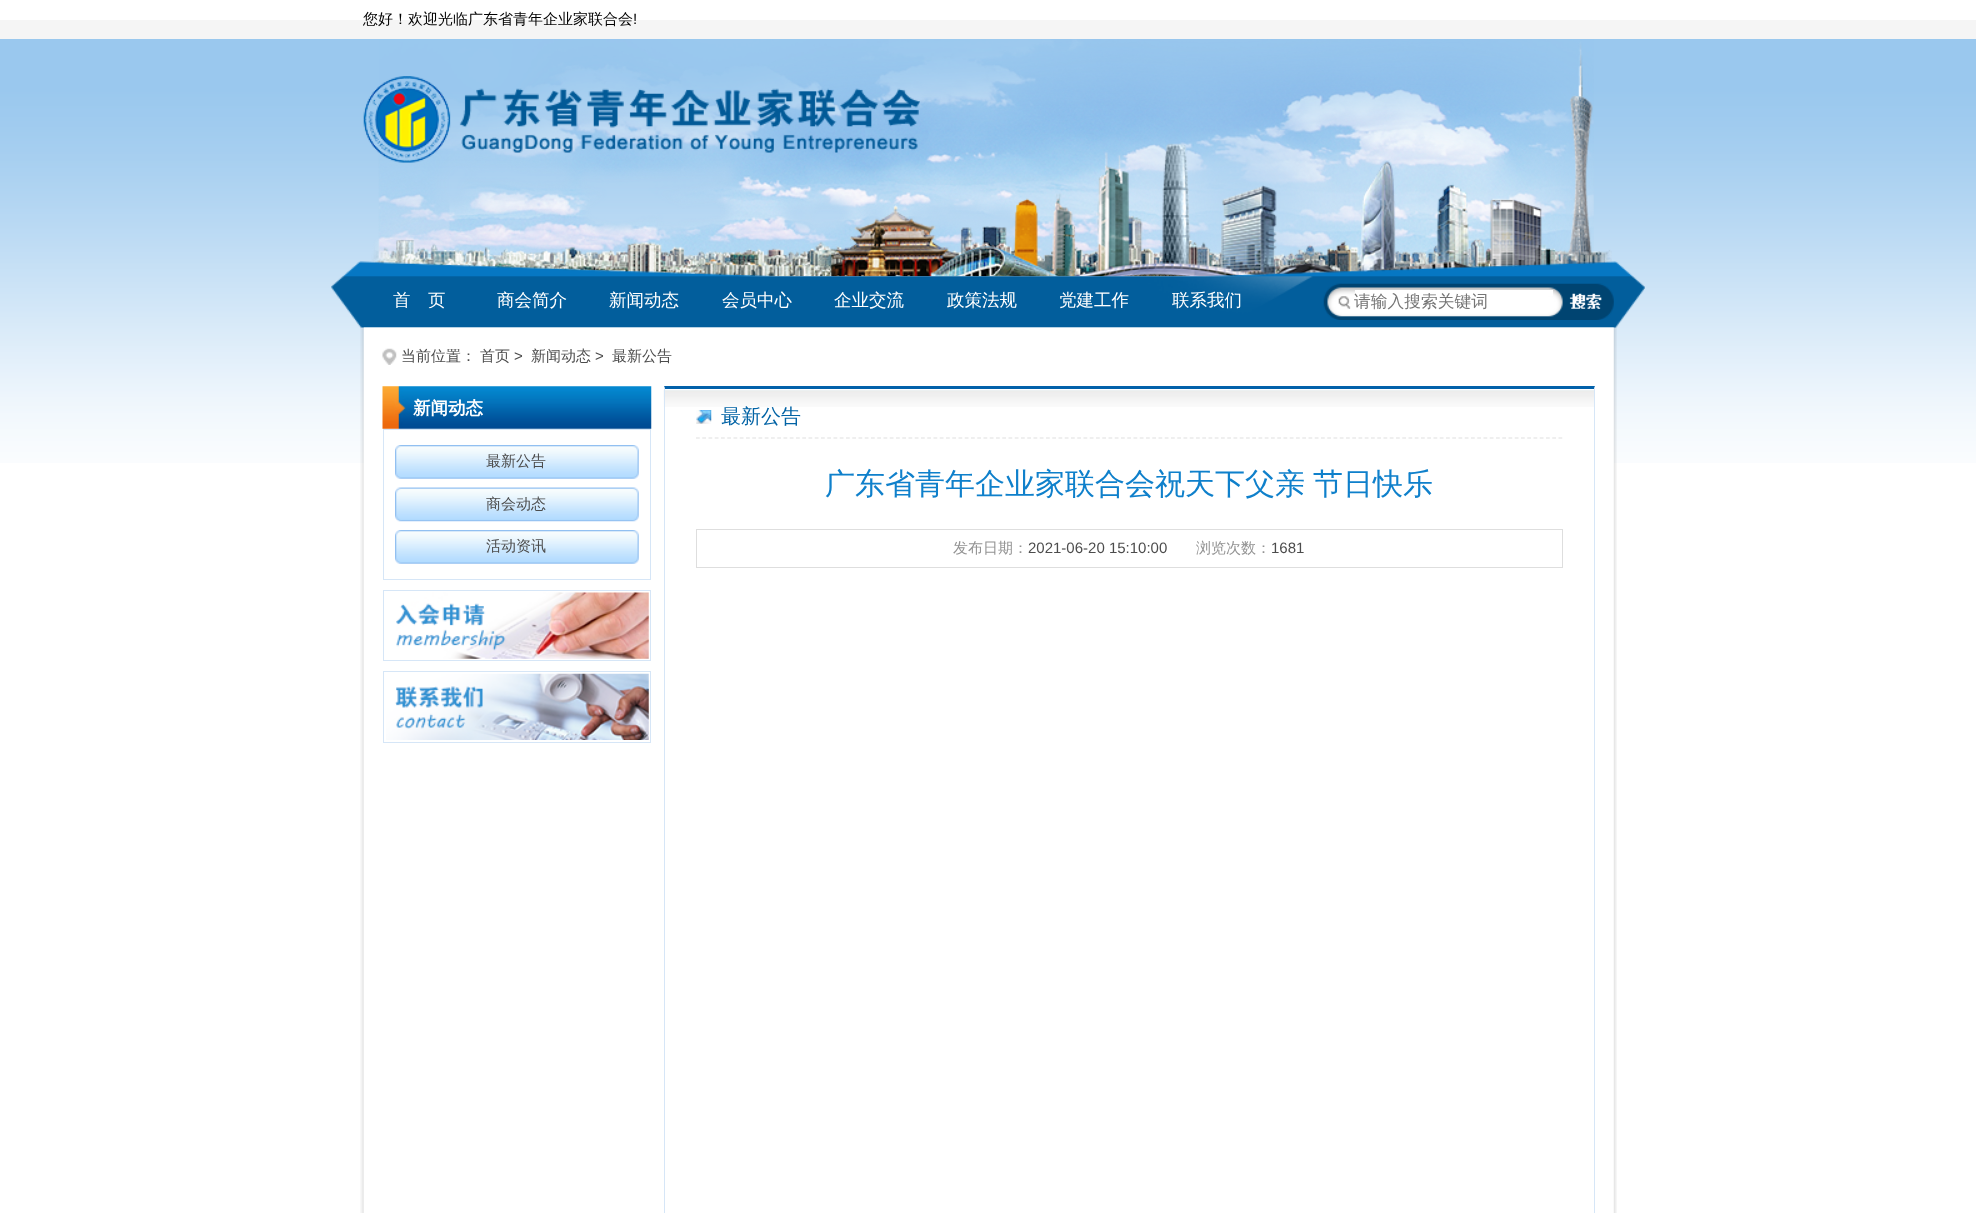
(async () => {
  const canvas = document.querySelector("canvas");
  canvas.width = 1976;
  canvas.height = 1213;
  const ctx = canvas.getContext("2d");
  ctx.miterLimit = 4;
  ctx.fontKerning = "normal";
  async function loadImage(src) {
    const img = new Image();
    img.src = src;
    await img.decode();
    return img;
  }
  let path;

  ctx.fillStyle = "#ffffff";
  ctx.fillRect(0, 0, 1976, 1213);
  ctx.fillStyle = "#f5f5f5";
  ctx.fillRect(0, 20, 1976, 19);
  ctx.drawImage(await loadImage("img/1.png"), 0, 39, 1976, 424);
  ctx.drawImage(await loadImage("img/2.png"), 371, 39, 1241, 238);
  ctx.drawImage(await loadImage("img/3.png"), 363, 76, 557, 87);
  ctx.drawImage(await loadImage("img/4.png"), 331, 261, 1314, 67);
  ctx.drawImage(await loadImage("img/5.png"), 1323, 283, 291, 37);
  ctx.fillStyle = "#ffffff";
  ctx.fillRect(1355, 290, 198, 6);
  ctx.drawImage(await loadImage("img/6.png"), 360, 327, 1257, 886);
  ctx.drawImage(await loadImage("img/7.png"), 382, 348, 15, 17);
  ctx.drawImage(await loadImage("img/8.png"), 382, 386, 270, 43);
  ctx.strokeStyle = "#d6e6f7";
  ctx.strokeRect(383.5, 429.5, 267, 150);
  ctx.drawImage(await loadImage("img/9.png"), 395, 445, 244, 34);
  ctx.drawImage(await loadImage("img/10.png"), 395, 487, 244, 35);
  ctx.drawImage(await loadImage("img/9.png"), 395, 530, 244, 34);
  ctx.strokeRect(383.5, 590.5, 267, 70);
  ctx.drawImage(await loadImage("img/11.png"), 396, 592, 253, 67);
  ctx.strokeRect(383.5, 671.5, 267, 71);
  ctx.drawImage(await loadImage("img/12.png"), 386, 673, 263, 67);
  ctx.drawImage(await loadImage("img/13.png"), 663, 390, 931, 17);
  ctx.fillStyle = "#0261aa";
  path = new Path2D("M664 386H1595L1594 389H665Z");
  ctx.fill(path);
  ctx.fillStyle = "#d6e6f7";
  path = new Path2D("M1595 386V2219L1594 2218V389Z");
  ctx.fill(path);
  path = new Path2D("M664 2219V386L665 389V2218Z");
  ctx.fill(path);
  ctx.drawImage(await loadImage("img/14.png"), 696, 410, 16, 14);
  path = new Path2D("M696 438H1562.5");
  ctx.strokeStyle = "#e0e0e0";
  ctx.lineWidth = 1.2;
  ctx.setLineDash([3.75, 2.5]);
  ctx.stroke(path);
  ctx.strokeStyle = "#dedede";
  ctx.lineWidth = 1;
  ctx.setLineDash([]);
  ctx.strokeRect(696.5, 529.5, 866, 38);
  ctx.font = "500 15px WenQuanYi Zen Hei";
  ctx.fillStyle = "#000000";
  ctx.fillText("您好！欢迎光临广东省青年企业家联合会", 363, 24);
  ctx.font = "15px Liberation Sans";
  ctx.fillText("!", 633, 24);
  ctx.font = "500 17.5px WenQuanYi Zen Hei";
  ctx.fillStyle = "#ffffff";
  for (const [text, x, y] of [
    ["首　页", 393, 306],
    ["商会简介", 497, 306],
    ["新闻动态", 609, 306],
    ["会员中心", 722, 306],
    ["企业交流", 834, 306],
    ["政策法规", 947, 306],
    ["党建工作", 1059, 306],
    ["联系我们", 1172, 306],
  ]) {
    ctx.fillText(text, x, y);
  }
  ctx.font = "500 16.75px WenQuanYi Zen Hei";
  ctx.fillStyle = "#757575";
  ctx.fillText("请输入搜索关键词", 1354, 307);
  ctx.font = "500 15px WenQuanYi Zen Hei";
  ctx.fillStyle = "#4c4c4c";
  ctx.fillText("当前位置：", 401, 361);
  ctx.fillText("首页", 480, 361);
  ctx.font = "15px Liberation Sans";
  ctx.fillText(">", 514, 361);
  ctx.font = "500 15px WenQuanYi Zen Hei";
  ctx.fillText("新闻动态", 531, 361);
  ctx.font = "15px Liberation Sans";
  ctx.fillText(">", 595, 361);
  ctx.font = "500 15px WenQuanYi Zen Hei";
  ctx.fillText("最新公告", 612, 361);
  ctx.font = "bold 17.5px WenQuanYi Zen Hei";
  ctx.fillStyle = "#ffffff";
  ctx.fillText("新闻动态", 413, 414);
  ctx.font = "500 15px WenQuanYi Zen Hei";
  ctx.fillStyle = "#4c4c4c";
  for (const [text, x, y] of [
    ["最新公告", 486, 466],
    ["商会动态", 486, 509],
    ["活动资讯", 486, 551],
  ]) {
    ctx.fillText(text, x, y);
  }
  ctx.font = "500 20px WenQuanYi Zen Hei";
  ctx.fillStyle = "#0263a5";
  ctx.fillText("最新公告", 721, 423);
  ctx.wordSpacing = "-1px";
  ctx.font = "500 30px WenQuanYi Zen Hei";
  ctx.fillStyle = "#0f80cb";
  ctx.fillText("广东省青年企业家联合会祝天下父亲 节日快乐", 825, 494);
  ctx.wordSpacing = "0px";
  ctx.font = "500 15px WenQuanYi Zen Hei";
  ctx.fillStyle = "#939393";
  ctx.fillText("发布日期：", 953, 553);
  ctx.font = "15px Liberation Sans";
  ctx.fillStyle = "#4c4c4c";
  ctx.fillText("2021-06-20 15:10:00", 1028, 553);
  ctx.font = "500 15px WenQuanYi Zen Hei";
  ctx.fillStyle = "#939393";
  ctx.fillText("浏览次数：", 1196, 553);
  ctx.font = "15px Liberation Sans";
  ctx.fillStyle = "#4c4c4c";
  ctx.fillText("1681", 1271, 553);
})();
